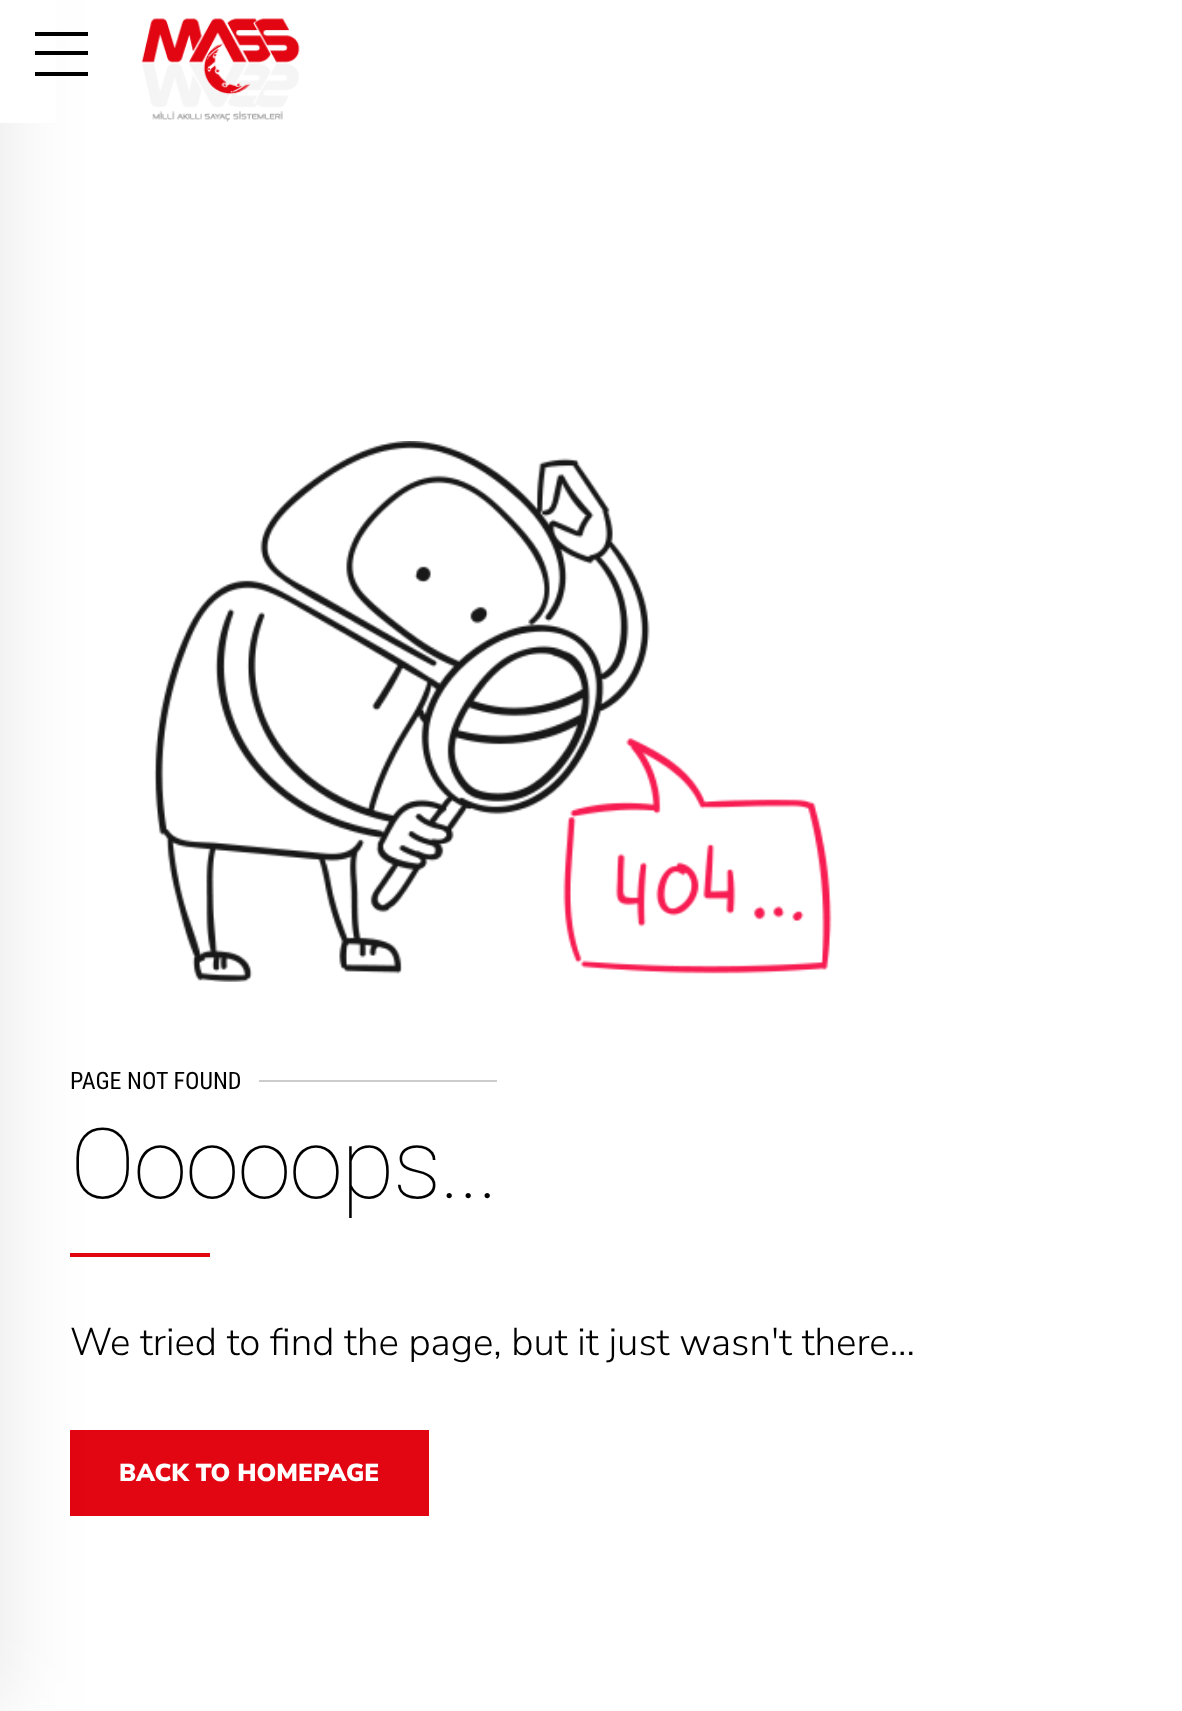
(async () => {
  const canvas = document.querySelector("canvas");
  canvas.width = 1182;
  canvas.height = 1711;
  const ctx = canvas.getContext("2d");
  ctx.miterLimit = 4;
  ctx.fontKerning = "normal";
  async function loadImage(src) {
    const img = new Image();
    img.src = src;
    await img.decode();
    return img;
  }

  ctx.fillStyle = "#ffffff";
  ctx.fillRect(0, 0, 1182, 1711);
  ctx.fillStyle = "#e20613";
  ctx.fillRect(70, 1253, 140, 4);
  ctx.fillRect(70, 1430, 359, 86);
  ctx.fillStyle = "rgba(0, 0, 0, 0.1)";
  ctx.filter = "blur(44px)";
  ctx.beginPath();
  ctx.rect(-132, 0, 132, 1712);
  ctx.fill();
  ctx.filter = "none";
  for (const [x, y, w, h, color] of [
    [0, 0, 56, 123, "#ffffff"],
    [35, 32, 53, 4, "#000000"],
    [35, 51, 53, 4, "#000000"],
    [35, 72, 53, 4, "#000000"],
  ]) {
    ctx.fillStyle = color;
    ctx.fillRect(x, y, w, h);
  }
  ctx.drawImage(await loadImage("img/1.png"), 141, 18, 159, 104);
  ctx.drawImage(await loadImage("img/2.png"), 154, 441, 678, 541);
  ctx.fillStyle = "#cccccc";
  ctx.fillRect(259, 1080, 238, 2);
  ctx.font = "24px Roboto Condensed";
  ctx.fillStyle = "#000000";
  ctx.fillText("PAGE NOT FOUND", 70, 1089);
  ctx.letterSpacing = "-2px";
  ctx.font = "100 98px Roboto";
  ctx.fillText("Ooooops...", 70, 1198);
  ctx.letterSpacing = "0px";
  ctx.font = "300 38.5px Nunito Sans";
  ctx.fillText("We tried to find the page, but it just wasn't there...", 70, 1355);
  ctx.font = "900 24.5px Nunito Sans";
  ctx.fillStyle = "#ffffff";
  ctx.fillText("BACK TO HOMEPAGE", 119, 1481);
})();
